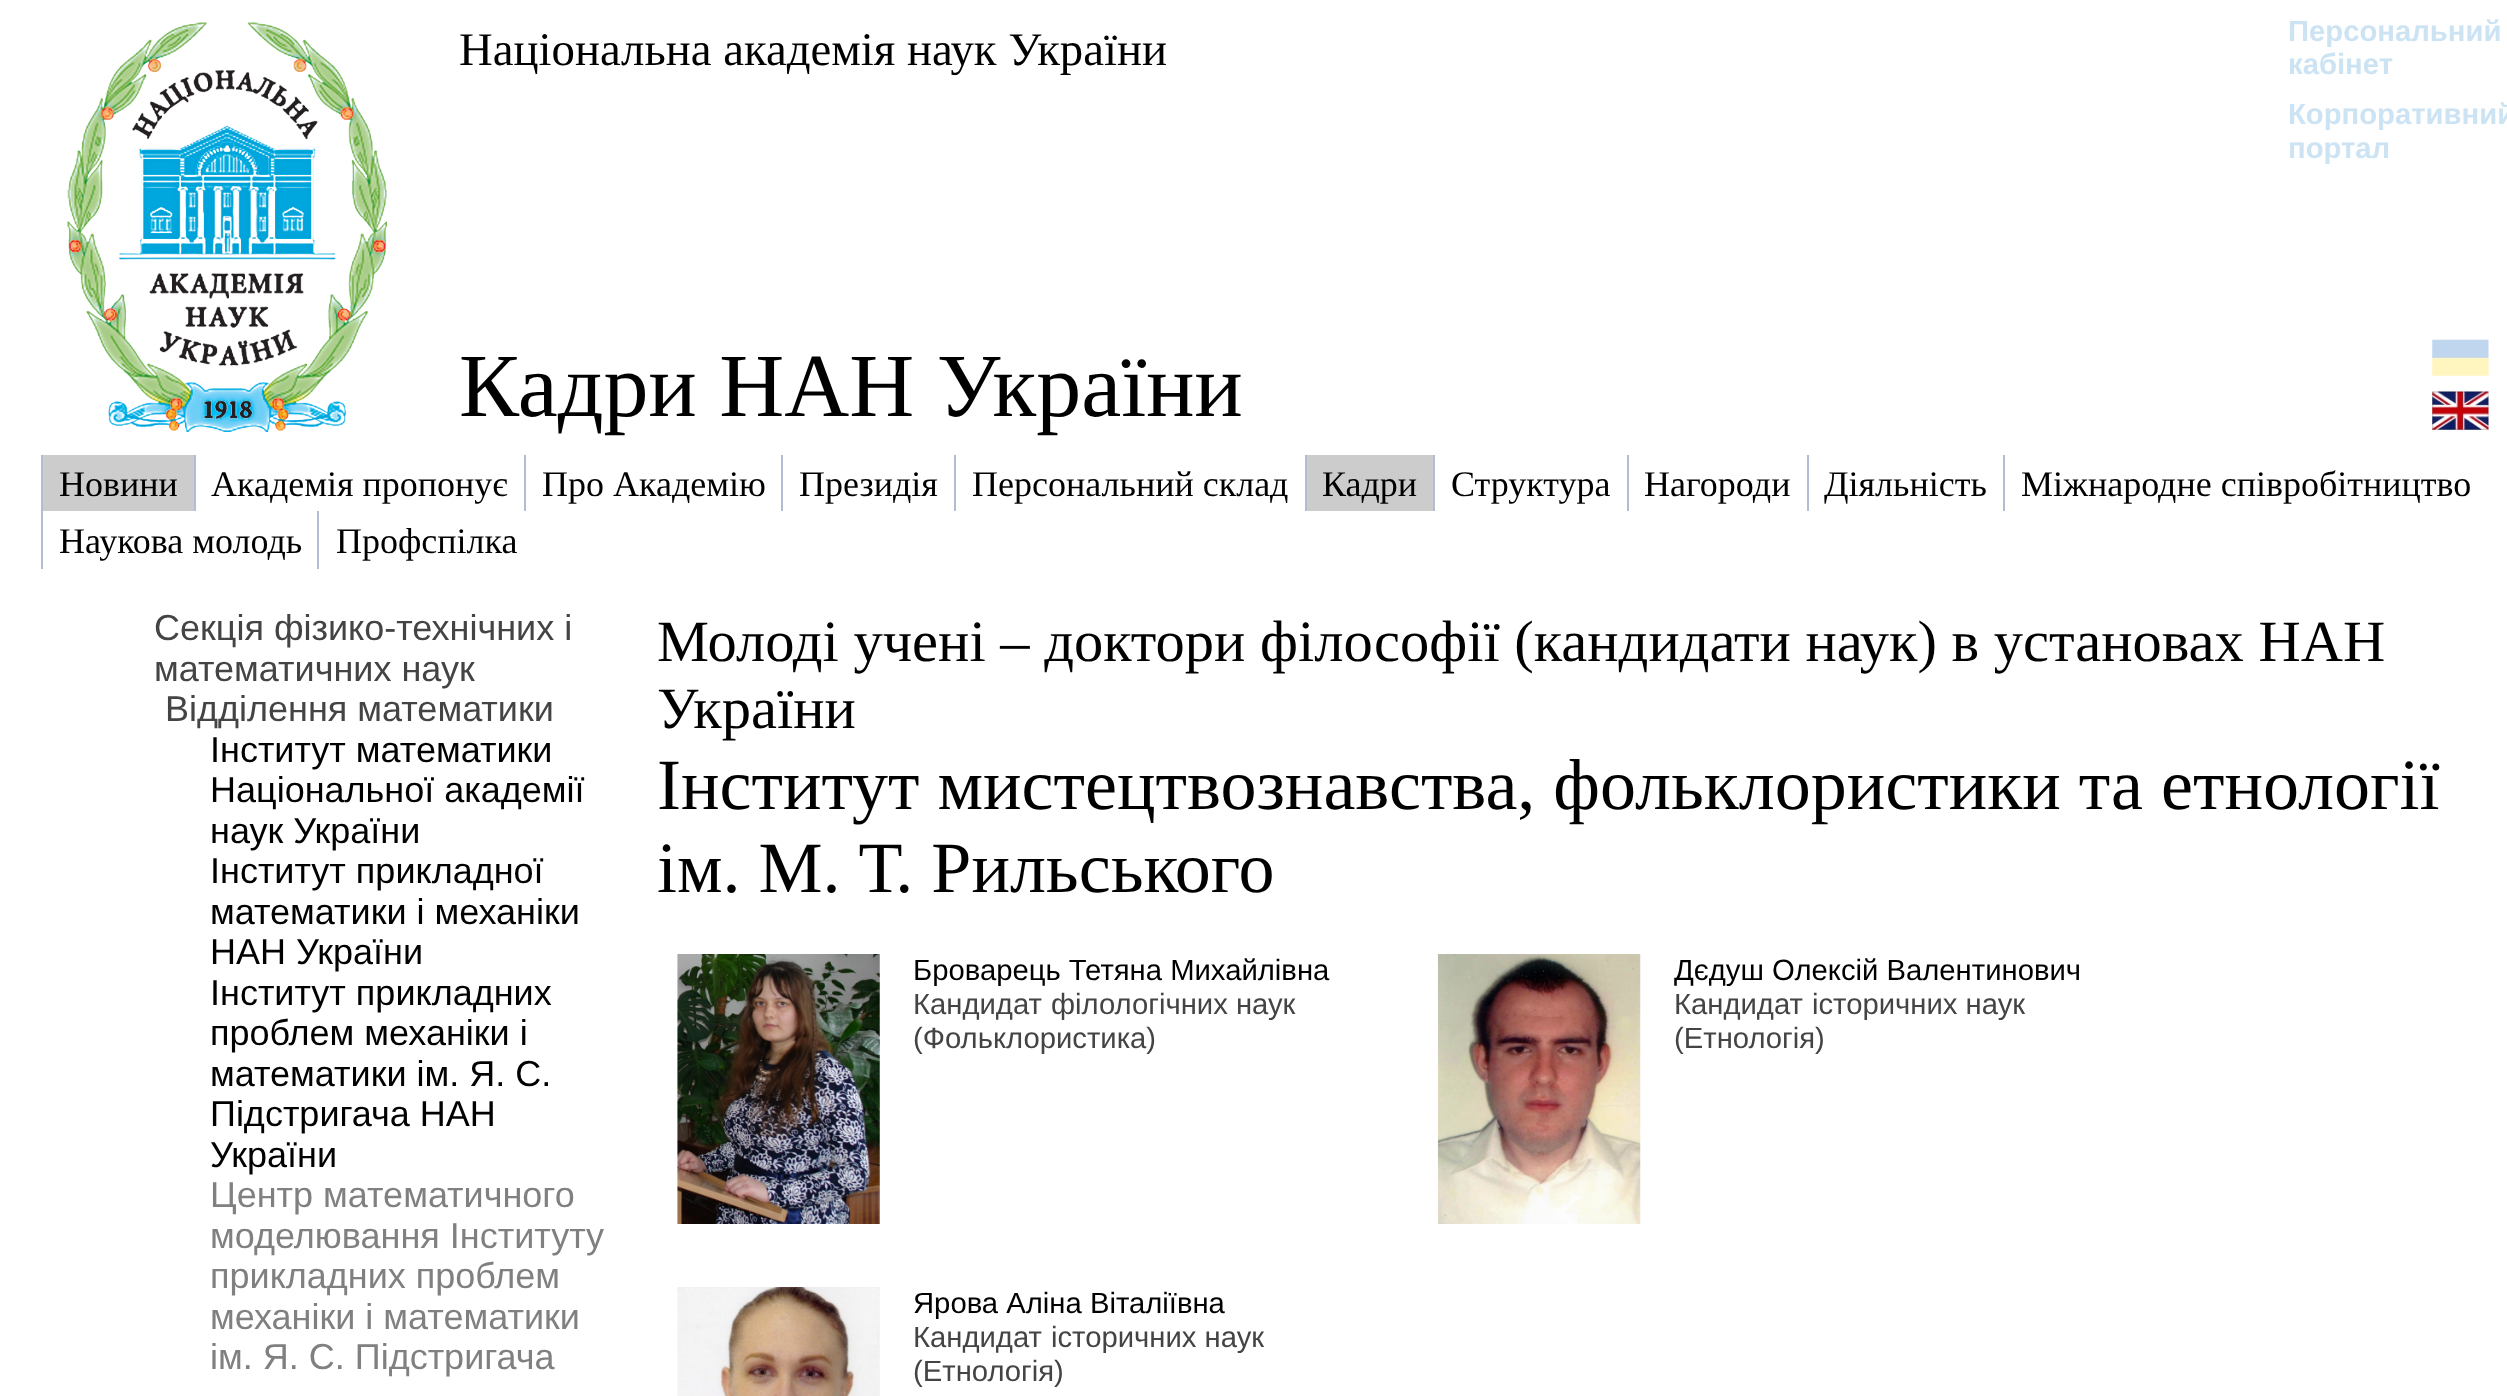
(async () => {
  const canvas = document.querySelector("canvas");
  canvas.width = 2507;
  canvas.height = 1396;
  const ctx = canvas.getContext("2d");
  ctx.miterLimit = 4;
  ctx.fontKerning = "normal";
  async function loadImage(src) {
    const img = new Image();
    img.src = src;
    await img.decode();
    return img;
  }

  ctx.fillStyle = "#ffffff";
  ctx.fillRect(0, 0, 2507, 1396);
  ctx.drawImage(await loadImage("img/1.png"), 67, 22, 320, 410);
  ctx.drawImage(await loadImage("img/2.png"), 2432, 339, 57, 37);
  ctx.drawImage(await loadImage("img/3.png"), 2432, 391, 57, 39);
  for (const [x, y, w, h, color] of [
    [43, 455, 151, 56, "#cccccc"],
    [41, 455, 2, 114, "#b2bdd3"],
    [194, 455, 2, 56, "#b2bdd3"],
    [524, 455, 2, 56, "#b2bdd3"],
    [781, 455, 2, 56, "#b2bdd3"],
    [954, 455, 2, 56, "#b2bdd3"],
    [1307, 455, 126, 56, "#cccccc"],
    [1305, 455, 2, 56, "#b2bdd3"],
    [1433, 455, 2, 56, "#b2bdd3"],
    [1627, 455, 2, 56, "#b2bdd3"],
    [1807, 455, 2, 56, "#b2bdd3"],
    [2003, 455, 2, 56, "#b2bdd3"],
    [317, 511, 2, 58, "#b2bdd3"],
  ]) {
    ctx.fillStyle = color;
    ctx.fillRect(x, y, w, h);
  }
  ctx.drawImage(await loadImage("img/4.png"), 677, 954, 203, 270);
  ctx.drawImage(await loadImage("img/5.png"), 1437, 954, 204, 270);
  ctx.drawImage(await loadImage("img/6.png"), 677, 1287, 203, 109);
  ctx.font = "46.75px Liberation Serif";
  ctx.fillStyle = "#000000";
  ctx.fillText("Національна академія наук України", 459, 65);
  ctx.font = "bold 29.25px Liberation Sans";
  ctx.fillStyle = "#cce3f4";
  for (const [text, x, y] of [
    ["Персональний", 2288, 41],
    ["кабінет", 2288, 74],
    ["Корпоративний", 2288, 124],
    ["портал", 2288, 158],
  ]) {
    ctx.fillText(text, x, y);
  }
  ctx.font = "90px Liberation Serif";
  ctx.fillStyle = "#000000";
  ctx.fillText("Кадри НАН України", 459, 416);
  ctx.font = "36px Liberation Serif";
  for (const [text, x, y] of [
    ["Новини", 59, 496],
    ["Академія пропонує", 211, 496],
    ["Про Академію", 542, 496],
    ["Президія", 799, 496],
    ["Персональний склад", 972, 496],
    ["Кадри", 1322, 496],
    ["Структура", 1451, 496],
    ["Нагороди", 1644, 496],
    ["Діяльність", 1824, 496],
    ["Міжнародне співробітництво", 2021, 496],
    ["Наукова молодь", 59, 553],
    ["Профспілка", 336, 553],
  ]) {
    ctx.fillText(text, x, y);
  }
  ctx.font = "36px Liberation Sans";
  ctx.fillStyle = "#444444";
  for (const [text, x, y] of [
    ["Секція фізико-технічних і", 154, 640],
    ["математичних наук", 154, 681],
    ["Відділення математики", 165, 721],
  ]) {
    ctx.fillText(text, x, y);
  }
  ctx.fillStyle = "#000000";
  for (const [text, x, y] of [
    ["Інститут математики", 210, 762],
    ["Національної академії", 210, 802],
    ["наук України", 210, 843],
    ["Інститут прикладної", 210, 883],
    ["математики і механіки", 210, 924],
    ["НАН України", 210, 964],
    ["Інститут прикладних", 210, 1005],
    ["проблем механіки і", 210, 1045],
    ["математики ім. Я. С.", 210, 1086],
    ["Підстригача НАН", 210, 1126],
    ["України", 210, 1167],
  ]) {
    ctx.fillText(text, x, y);
  }
  ctx.fillStyle = "#808080";
  for (const [text, x, y] of [
    ["Центр математичного", 210, 1207],
    ["моделювання Інституту", 210, 1248],
    ["прикладних проблем", 210, 1288],
    ["механіки і математики", 210, 1329],
    ["ім. Я. С. Підстригача", 210, 1369],
  ]) {
    ctx.fillText(text, x, y);
  }
  ctx.font = "58.5px Liberation Serif";
  ctx.fillStyle = "#000000";
  ctx.fillText("Молоді учені – доктори філософії (кандидати наук) в установах НАН", 657, 661);
  ctx.fillText("України", 657, 728);
  ctx.font = "72px Liberation Serif";
  ctx.fillText("Інститут мистецтвознавства, фольклористики та етнології", 657, 809);
  ctx.fillText("ім. М. Т. Рильського", 657, 892);
  ctx.font = "29.25px Liberation Sans";
  ctx.fillText("Броварець Тетяна Михайлівна", 913, 980);
  ctx.fillStyle = "#444444";
  for (const [text, x, y] of [
    ["Кандидат", 913, 1014],
    ["філологічних наук", 1051, 1014],
    ["(Фольклористика)", 913, 1048],
  ]) {
    ctx.fillText(text, x, y);
  }
  ctx.fillStyle = "#000000";
  ctx.fillText("Дєдуш Олексій Валентинович", 1674, 980);
  ctx.fillStyle = "#444444";
  for (const [text, x, y] of [
    ["Кандидат", 1674, 1014],
    ["історичних наук", 1812, 1014],
    ["(Етнологія)", 1674, 1048],
  ]) {
    ctx.fillText(text, x, y);
  }
  ctx.fillStyle = "#000000";
  ctx.fillText("Ярова Аліна Віталіївна", 913, 1313);
  ctx.fillStyle = "#444444";
  for (const [text, x, y] of [
    ["Кандидат", 913, 1347],
    ["історичних наук", 1051, 1347],
    ["(Етнологія)", 913, 1381],
  ]) {
    ctx.fillText(text, x, y);
  }
})();
